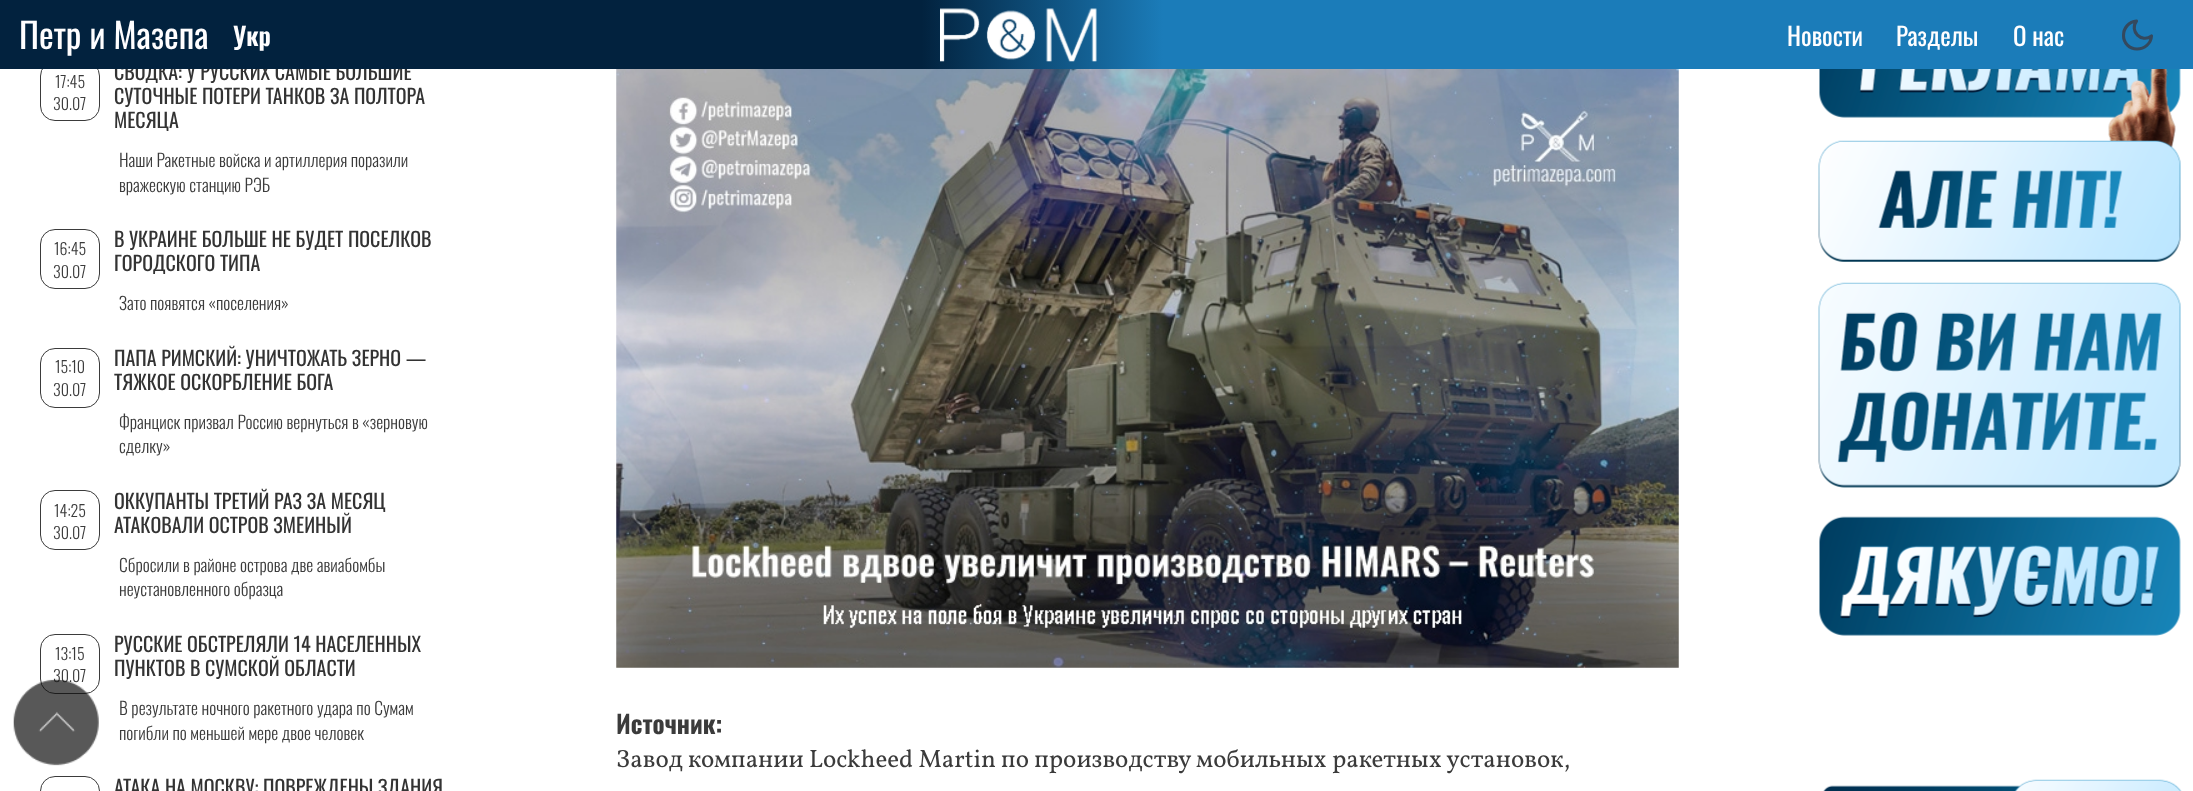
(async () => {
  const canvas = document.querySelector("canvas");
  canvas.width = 2193;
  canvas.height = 791;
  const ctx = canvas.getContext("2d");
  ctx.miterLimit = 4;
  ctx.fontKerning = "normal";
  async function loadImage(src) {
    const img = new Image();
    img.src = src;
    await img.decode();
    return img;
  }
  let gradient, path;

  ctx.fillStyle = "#ffffff";
  ctx.fillRect(0, 0, 2193, 791);
  ctx.beginPath();
  ctx.roundRect(40.5, 61.5, 59, 59, 14.5);
  ctx.strokeStyle = "#3b3b3b";
  ctx.stroke();
  ctx.beginPath();
  ctx.roundRect(40.5, 229.5, 59, 59, 14.5);
  ctx.stroke();
  ctx.beginPath();
  ctx.roundRect(40.5, 348.5, 59, 59, 14.5);
  ctx.stroke();
  ctx.beginPath();
  ctx.roundRect(40.5, 490.5, 59, 59, 14.5);
  ctx.stroke();
  ctx.beginPath();
  ctx.roundRect(40.5, 634.5, 59, 59, 14.5);
  ctx.stroke();
  ctx.beginPath();
  ctx.roundRect(40.5, 776.5, 59, 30, 14.5);
  ctx.stroke();
  ctx.drawImage(await loadImage("img/2.png"), 616, 69, 1063, 599);
  ctx.drawImage(await loadImage("img/3.png"), 1818, 69, 363, 567);
  ctx.drawImage(await loadImage("img/4.png"), 1823, 779, 359, 12);
  ctx.font = "300 16px Oswald";
  ctx.fillStyle = "#3b3b3b";
  ctx.fillText("17:45", 55, 88);
  ctx.fillText("30.07", 53, 110);
  ctx.font = "20px Oswald";
  ctx.fillStyle = "#333333";
  ctx.fillText("СВОДКА: У РУССКИХ САМЫЕ БОЛЬШИЕ", 114, 80);
  gradient = ctx.createLinearGradient(0, 34, 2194, 34);
  gradient.addColorStop(0.42, "#02223e");
  gradient.addColorStop(0.53, "#1b7cb9");
  ctx.fillStyle = gradient;
  ctx.fillRect(0, 0, 2193, 69);
  path = new Path2D("M2151.5 36C2151 43.5 2144.5 49 2137 49C2129.5 49 2123.5 43 2123.5 35.5C2123.5 28 2129 21.5 2136.5 21C2129 31 2141.5 43.5 2151.5 36Z");
  ctx.strokeStyle = "#34495e";
  ctx.lineWidth = 3.1;
  ctx.lineCap = "round";
  ctx.lineJoin = "round";
  ctx.stroke(path);
  ctx.font = "25px Oswald";
  ctx.fillStyle = "#fffeff";
  for (const [text, x, y] of [
    ["О нас", 2013, 46],
    ["Разделы", 1896, 46],
    ["Новости", 1787, 46],
  ]) {
    ctx.fillText(text, x, y);
  }
  ctx.drawImage(await loadImage("img/1.png"), 940, 8, 157, 54);
  ctx.font = "600 25px Oswald";
  ctx.fillText("Укр", 233, 46);
  ctx.font = "35px Oswald";
  ctx.fillText("Петр и Мазепа", 19, 49);
  ctx.font = "20px Oswald";
  ctx.fillStyle = "#333333";
  ctx.fillText("СУТОЧНЫЕ ПОТЕРИ ТАНКОВ ЗА ПОЛТОРА", 114, 104);
  ctx.fillText("МЕСЯЦА", 114, 128);
  ctx.font = "300 17.5px Oswald";
  ctx.fillStyle = "#3b3b3b";
  ctx.fillText("Наши Ракетные войска и артиллерия поразили", 119, 167);
  ctx.fillText("вражескую станцию РЭБ", 119, 192);
  ctx.font = "300 16px Oswald";
  ctx.fillText("16:45", 54, 255);
  ctx.fillText("30.07", 53, 278);
  ctx.font = "20px Oswald";
  ctx.fillStyle = "#333333";
  ctx.fillText("В УКРАИНЕ БОЛЬШЕ НЕ БУДЕТ ПОСЕЛКОВ", 114, 247);
  ctx.fillText("ГОРОДСКОГО ТИПА", 114, 271);
  ctx.font = "300 17.5px Oswald";
  ctx.fillStyle = "#3b3b3b";
  ctx.fillText("Зато появятся «поселения»", 119, 310);
  ctx.font = "300 16px Oswald";
  ctx.fillText("15:10", 55, 373);
  ctx.fillText("30.07", 53, 396);
  ctx.font = "20px Oswald";
  ctx.fillStyle = "#333333";
  ctx.fillText("ПАПА РИМСКИЙ: УНИЧТОЖАТЬ ЗЕРНО —", 114, 366);
  ctx.fillText("ТЯЖКОЕ ОСКОРБЛЕНИЕ БОГА", 114, 390);
  ctx.font = "300 17.5px Oswald";
  ctx.fillStyle = "#3b3b3b";
  ctx.fillText("Франциск призвал Россию вернуться в «зерновую", 119, 429);
  ctx.fillText("сделку»", 119, 453);
  ctx.font = "300 16px Oswald";
  ctx.fillText("14:25", 54, 517);
  ctx.fillText("30.07", 53, 539);
  ctx.font = "20px Oswald";
  ctx.fillStyle = "#333333";
  ctx.fillText("ОККУПАНТЫ ТРЕТИЙ РАЗ ЗА МЕСЯЦ", 114, 509);
  ctx.fillText("АТАКОВАЛИ ОСТРОВ ЗМЕИНЫЙ", 114, 533);
  ctx.font = "300 17.5px Oswald";
  ctx.fillStyle = "#3b3b3b";
  ctx.fillText("Сбросили в районе острова две авиабомбы", 119, 572);
  ctx.fillText("неустановленного образца", 119, 596);
  ctx.font = "300 16px Oswald";
  ctx.fillText("13:15", 55, 660);
  ctx.fillText("30.07", 53, 682);
  ctx.font = "20px Oswald";
  ctx.fillStyle = "#333333";
  ctx.fillText("РУССКИЕ ОБСТРЕЛЯЛИ 14 НАСЕЛЕННЫХ", 114, 652);
  ctx.fillText("ПУНКТОВ В СУМСКОЙ ОБЛАСТИ", 114, 676);
  ctx.font = "300 17.5px Oswald";
  ctx.fillStyle = "#3b3b3b";
  ctx.fillText("В результате ночного ракетного удара по Сумам", 119, 715);
  ctx.fillText("погибли по меньшей мере двое человек", 119, 740);
  ctx.font = "20px Oswald";
  ctx.fillStyle = "#333333";
  ctx.fillText("АТАКА НА МОСКВУ: ПОВРЕЖДЕНЫ ЗДАНИЯ", 114, 795);
  ctx.font = "bold 25px Oswald";
  ctx.fillStyle = "#3b3b3b";
  ctx.fillText("Источник:", 616, 734);
  ctx.wordSpacing = "0.25px";
  ctx.font = "25px Vollkorn";
  ctx.fillText("Завод компании Lockheed Martin по производству мобильных ракетных установок,", 616, 767);
  ctx.drawImage(await loadImage("img/5.png"), 13, 678, 86, 88);
})();
